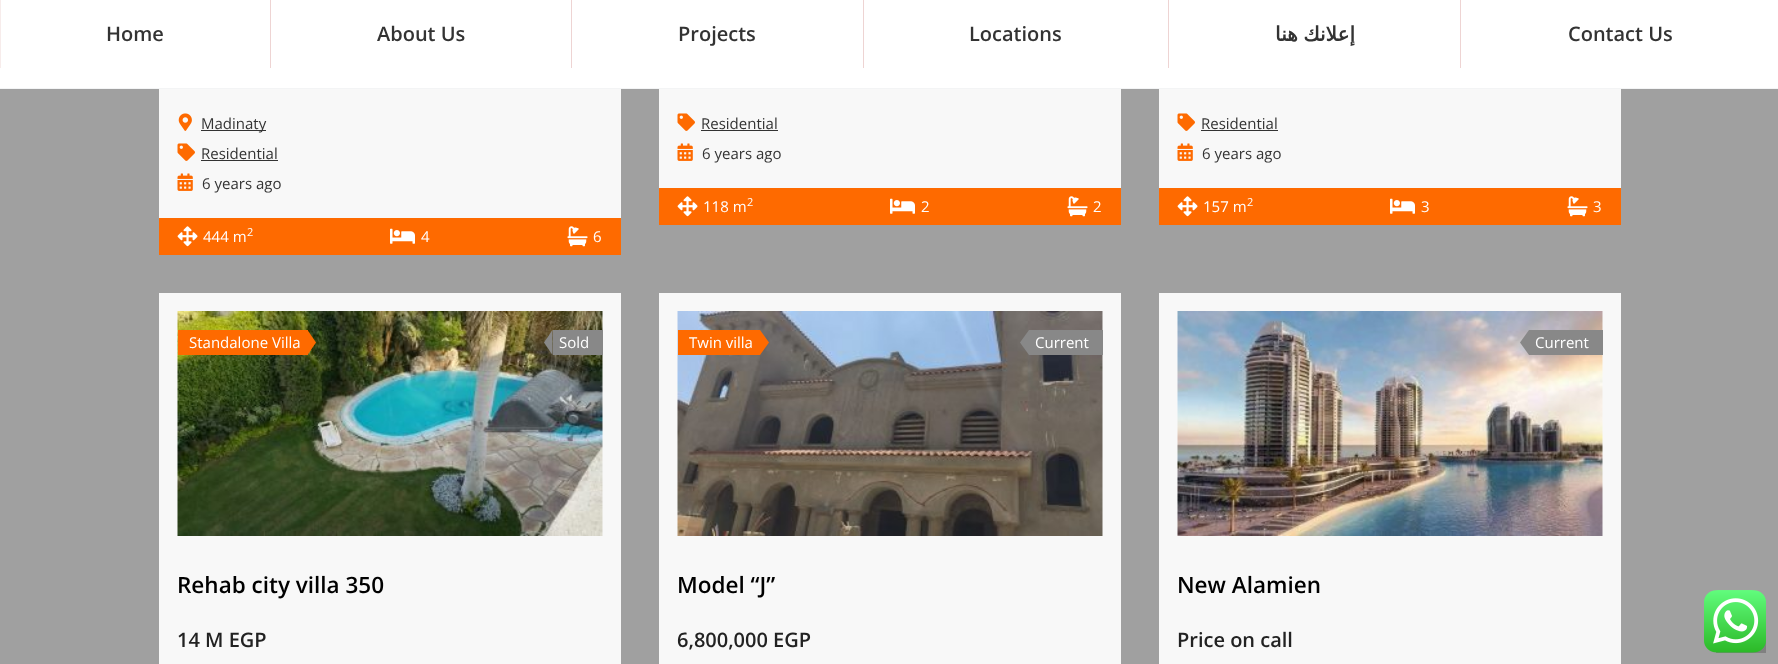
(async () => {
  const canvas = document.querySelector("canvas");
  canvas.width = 1778;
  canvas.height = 664;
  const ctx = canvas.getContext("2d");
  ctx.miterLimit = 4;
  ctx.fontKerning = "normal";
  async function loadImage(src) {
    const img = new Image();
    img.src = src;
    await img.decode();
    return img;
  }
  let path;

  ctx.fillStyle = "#a0a0a0";
  ctx.fillRect(0, 0, 1778, 664);
  for (const [x, y, w, h, color] of [
    [0, 0, 1778, 88, "#ffffff"],
    [0, 88, 1778, 1, "#f3f4f5"],
    [0, 0, 1, 68, "#eed4d3"],
    [0, 0, 1, 68, "rgba(255, 255, 255, 0.55)"],
    [270, 0, 1, 68, "#eed4d3"],
    [571, 0, 1, 68, "#eed4d3"],
    [863, 0, 1, 68, "#eed4d3"],
    [1168, 0, 1, 68, "#eed4d3"],
    [1460, 0, 1, 68, "#eed4d3"],
    [159, 89, 462, 129, "#f8f8f8"],
  ]) {
    ctx.fillStyle = color;
    ctx.fillRect(x, y, w, h);
  }
  ctx.drawImage(await loadImage("img/1.png"), 178, 113, 14, 18);
  ctx.fillStyle = "#333333";
  ctx.fillRect(201, 130, 65, 1);
  ctx.drawImage(await loadImage("img/2.png"), 177, 143, 18, 18);
  ctx.fillRect(201, 160, 77, 1);
  ctx.drawImage(await loadImage("img/3.png"), 177, 173, 16, 18);
  ctx.fillStyle = "#fe6a00";
  ctx.fillRect(159, 218, 462, 37);
  ctx.drawImage(await loadImage("img/4.png"), 177, 226, 21, 21);
  ctx.drawImage(await loadImage("img/5.png"), 390, 228, 25, 16);
  ctx.drawImage(await loadImage("img/6.png"), 567, 226, 21, 21);
  ctx.fillStyle = "#f8f8f8";
  ctx.fillRect(659, 89, 462, 99);
  ctx.drawImage(await loadImage("img/2.png"), 677, 113, 18, 18);
  ctx.fillStyle = "#333333";
  ctx.fillRect(701, 130, 77, 1);
  ctx.drawImage(await loadImage("img/3.png"), 677, 143, 16, 18);
  ctx.fillStyle = "#fe6a00";
  ctx.fillRect(659, 188, 462, 37);
  ctx.drawImage(await loadImage("img/4.png"), 677, 196, 21, 21);
  ctx.drawImage(await loadImage("img/5.png"), 890, 198, 25, 16);
  ctx.drawImage(await loadImage("img/6.png"), 1067, 196, 21, 21);
  ctx.fillStyle = "#f8f8f8";
  ctx.fillRect(1159, 89, 462, 99);
  ctx.drawImage(await loadImage("img/2.png"), 1177, 113, 18, 18);
  ctx.fillStyle = "#333333";
  ctx.fillRect(1201, 130, 77, 1);
  ctx.drawImage(await loadImage("img/3.png"), 1177, 143, 16, 18);
  ctx.fillStyle = "#fe6a00";
  ctx.fillRect(1159, 188, 462, 37);
  ctx.drawImage(await loadImage("img/4.png"), 1177, 196, 21, 21);
  ctx.drawImage(await loadImage("img/5.png"), 1390, 198, 25, 16);
  ctx.drawImage(await loadImage("img/6.png"), 1567, 196, 21, 21);
  ctx.fillStyle = "#f8f8f8";
  ctx.fillRect(159, 293, 462, 371);
  ctx.drawImage(await loadImage("img/7.png"), 177, 311, 426, 225);
  ctx.fillStyle = "#fe6a00";
  ctx.fillRect(178, 330, 130, 25);
  path = new Path2D("M307.5 355V330L316 342.5Z");
  ctx.fill(path);
  ctx.fillStyle = "#888888";
  ctx.fillRect(553, 330, 50, 25);
  path = new Path2D("M552.5 330V355L544 342.5Z");
  ctx.fill(path);
  ctx.fillStyle = "#f8f8f8";
  ctx.fillRect(659, 293, 462, 371);
  ctx.drawImage(await loadImage("img/8.png"), 677, 311, 426, 225);
  ctx.fillStyle = "#fe6a00";
  ctx.fillRect(678, 330, 82, 25);
  path = new Path2D("M760 355V330L769 342.5Z");
  ctx.fill(path);
  ctx.fillStyle = "#888888";
  ctx.fillRect(1029, 330, 74, 25);
  path = new Path2D("M1029 330V355L1020 342.5Z");
  ctx.fill(path);
  ctx.fillStyle = "#f8f8f8";
  ctx.fillRect(1159, 293, 462, 371);
  ctx.drawImage(await loadImage("img/9.png"), 1177, 311, 426, 225);
  ctx.fillStyle = "#888888";
  ctx.fillRect(1529, 330, 74, 25);
  path = new Path2D("M1529 330V355L1520 342.5Z");
  ctx.fill(path);
  ctx.fillStyle = "#808080";
  ctx.fillRect(1716, 641, 50, 12);
  ctx.drawImage(await loadImage("img/10.png"), 1704, 590, 62, 63);
  ctx.font = "600 20px Open Sans";
  ctx.fillStyle = "#333333";
  for (const [text, x, y] of [
    ["Home", 106, 41],
    ["About Us", 377, 41],
    ["Projects", 678, 41],
    ["Locations", 969, 41],
  ]) {
    ctx.fillText(text, x, y);
  }
  ctx.wordSpacing = "-1px";
  ctx.direction = "rtl";
  ctx.font = "bold 20px DejaVu Sans";
  ctx.fillText("إعلانك هنا", 1355, 41);
  ctx.wordSpacing = "0px";
  ctx.direction = "ltr";
  ctx.font = "600 20px Open Sans";
  ctx.fillText("Contact Us", 1568, 41);
  ctx.font = "15px Open Sans";
  for (const [text, x, y] of [
    ["Madinaty", 201, 129],
    ["Residential", 201, 159],
    ["6 years ago", 202, 189],
  ]) {
    ctx.fillText(text, x, y);
  }
  ctx.fillStyle = "#ffffff";
  ctx.fillText("444 m", 203, 242);
  ctx.font = "11px Open Sans";
  ctx.fillText("2", 247, 236);
  ctx.font = "15px Open Sans";
  ctx.fillText("4", 421, 242);
  ctx.fillText("6", 593, 242);
  ctx.fillStyle = "#333333";
  ctx.fillText("Residential", 701, 129);
  ctx.fillText("6 years ago", 702, 159);
  ctx.fillStyle = "#ffffff";
  ctx.fillText("118 m", 703, 212);
  ctx.font = "11px Open Sans";
  ctx.fillText("2", 747, 206);
  ctx.font = "15px Open Sans";
  ctx.fillText("2", 921, 212);
  ctx.fillText("2", 1093, 212);
  ctx.fillStyle = "#333333";
  ctx.fillText("Residential", 1201, 129);
  ctx.fillText("6 years ago", 1202, 159);
  ctx.fillStyle = "#ffffff";
  ctx.fillText("157 m", 1203, 212);
  ctx.font = "11px Open Sans";
  ctx.fillText("2", 1247, 206);
  ctx.font = "15px Open Sans";
  for (const [text, x, y] of [
    ["3", 1421, 212],
    ["3", 1593, 212],
    ["Standalone Villa", 189, 348],
    ["Sold", 559, 348],
  ]) {
    ctx.fillText(text, x, y);
  }
  ctx.font = "600 22.5px Open Sans";
  ctx.fillStyle = "#000000";
  ctx.fillText("Rehab city villa 350", 177, 593);
  ctx.font = "600 20px Open Sans";
  ctx.fillStyle = "#222222";
  ctx.fillText("14 M EGP", 177, 647);
  ctx.font = "15px Open Sans";
  ctx.fillStyle = "#ffffff";
  ctx.fillText("Twin villa", 689, 348);
  ctx.fillText("Current", 1035, 348);
  ctx.font = "600 22.5px Open Sans";
  ctx.fillStyle = "#000000";
  ctx.fillText("Model “J”", 677, 593);
  ctx.font = "600 20px Open Sans";
  ctx.fillStyle = "#222222";
  ctx.fillText("6,800,000 EGP", 677, 647);
  ctx.font = "15px Open Sans";
  ctx.fillStyle = "#ffffff";
  ctx.fillText("Current", 1535, 348);
  ctx.font = "600 22.5px Open Sans";
  ctx.fillStyle = "#000000";
  ctx.fillText("New Alamien", 1177, 593);
  ctx.font = "600 20px Open Sans";
  ctx.fillStyle = "#222222";
  ctx.fillText("Price on call", 1177, 647);
})();
